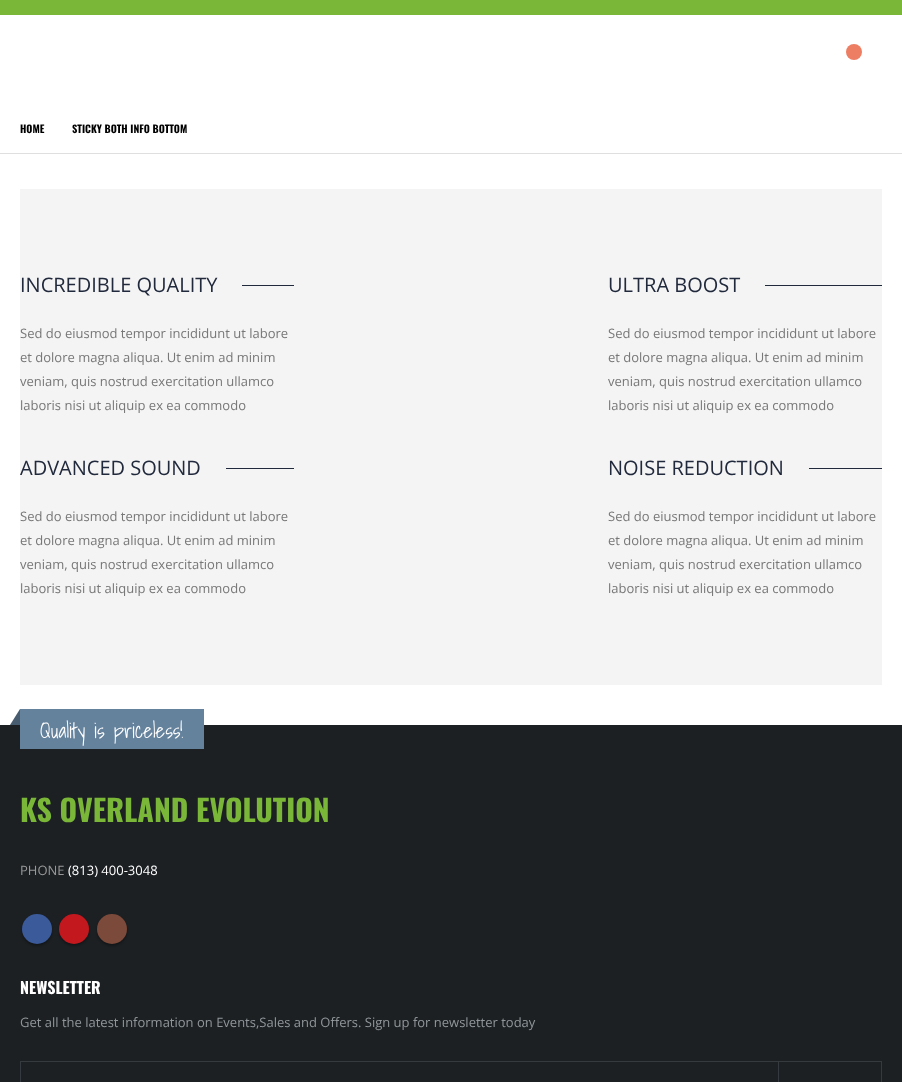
(async () => {
  const canvas = document.querySelector("canvas");
  canvas.width = 902;
  canvas.height = 1082;
  const ctx = canvas.getContext("2d");
  ctx.miterLimit = 4;
  ctx.fontKerning = "normal";
  let path;

  ctx.fillStyle = "#ffffff";
  ctx.fillRect(0, 0, 902, 1082);
  ctx.fillStyle = "#7ab738";
  ctx.fillRect(0, 0, 902, 15);
  ctx.fillStyle = "#ed7e63";
  ctx.beginPath();
  ctx.arc(854, 52, 8, 0, Math.PI * 2);
  ctx.fill();
  for (const [x, y, w, h, color] of [
    [0, 153, 902, 1, "#dfdfdf"],
    [20, 189, 862, 496, "#f4f4f4"],
    [242, 285, 52, 1, "#21293c"],
    [226, 468, 68, 1, "#21293c"],
    [765, 285, 117, 1, "#21293c"],
    [809, 468, 73, 1, "#21293c"],
    [0, 725, 902, 357, "#1c2023"],
    [20, 709, 184, 40, "#65829d"],
  ]) {
    ctx.fillStyle = color;
    ctx.fillRect(x, y, w, h);
  }
  ctx.fillStyle = "#475c6f";
  path = new Path2D("M20 709V725H10Z");
  ctx.fill(path);
  ctx.fillStyle = "rgba(0, 0, 0, 0.3)";
  ctx.filter = "blur(1px)";
  ctx.beginPath();
  ctx.roundRect(22, 916, 30, 30, 15);
  ctx.fill();
  ctx.filter = "none";
  ctx.fillStyle = "#3b5a9a";
  ctx.beginPath();
  ctx.arc(37, 929, 15, 0, Math.PI * 2);
  ctx.fill();
  ctx.fillStyle = "rgba(0, 0, 0, 0.3)";
  ctx.filter = "blur(1px)";
  ctx.beginPath();
  ctx.roundRect(59, 916, 30, 30, 15);
  ctx.fill();
  ctx.filter = "none";
  ctx.fillStyle = "#c3191e";
  ctx.beginPath();
  ctx.arc(74, 929, 15, 0, Math.PI * 2);
  ctx.fill();
  ctx.fillStyle = "rgba(0, 0, 0, 0.3)";
  ctx.filter = "blur(1px)";
  ctx.beginPath();
  ctx.roundRect(97, 916, 30, 30, 15);
  ctx.fill();
  ctx.filter = "none";
  ctx.fillStyle = "#7c4a3a";
  ctx.beginPath();
  ctx.arc(112, 929, 15, 0, Math.PI * 2);
  ctx.fill();
  ctx.strokeStyle = "#353a3e";
  ctx.strokeRect(778.5, 1061.5, 103, 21);
  ctx.strokeRect(20.5, 1061.5, 758, 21);
  ctx.font = "bold 10.4px Oswald";
  ctx.fillStyle = "#000000";
  ctx.fillText("HOME", 20, 133);
  ctx.fillText("STICKY BOTH INFO BOTTOM", 72, 133);
  ctx.font = "20px Open Sans";
  ctx.fillStyle = "#21293c";
  ctx.fillText("INCREDIBLE QUALITY", 20, 292);
  ctx.font = "13px Open Sans";
  ctx.fillStyle = "#777777";
  for (const [text, x, y] of [
    ["Sed do eiusmod tempor incididunt ut labore", 20, 338],
    ["et dolore magna aliqua. Ut enim ad minim", 20, 362],
    ["veniam, quis nostrud exercitation ullamco", 20, 386],
    ["laboris nisi ut aliquip ex ea commodo", 20, 410],
  ]) {
    ctx.fillText(text, x, y);
  }
  ctx.font = "20px Open Sans";
  ctx.fillStyle = "#21293c";
  ctx.fillText("ADVANCED SOUND", 20, 475);
  ctx.font = "13px Open Sans";
  ctx.fillStyle = "#777777";
  for (const [text, x, y] of [
    ["Sed do eiusmod tempor incididunt ut labore", 20, 521],
    ["et dolore magna aliqua. Ut enim ad minim", 20, 545],
    ["veniam, quis nostrud exercitation ullamco", 20, 569],
    ["laboris nisi ut aliquip ex ea commodo", 20, 593],
  ]) {
    ctx.fillText(text, x, y);
  }
  ctx.font = "20px Open Sans";
  ctx.fillStyle = "#21293c";
  ctx.fillText("ULTRA BOOST", 608, 292);
  ctx.font = "13px Open Sans";
  ctx.fillStyle = "#777777";
  for (const [text, x, y] of [
    ["Sed do eiusmod tempor incididunt ut labore", 608, 338],
    ["et dolore magna aliqua. Ut enim ad minim", 608, 362],
    ["veniam, quis nostrud exercitation ullamco", 608, 386],
    ["laboris nisi ut aliquip ex ea commodo", 608, 410],
  ]) {
    ctx.fillText(text, x, y);
  }
  ctx.font = "20px Open Sans";
  ctx.fillStyle = "#21293c";
  ctx.fillText("NOISE REDUCTION", 608, 475);
  ctx.font = "13px Open Sans";
  ctx.fillStyle = "#777777";
  for (const [text, x, y] of [
    ["Sed do eiusmod tempor incididunt ut labore", 608, 521],
    ["et dolore magna aliqua. Ut enim ad minim", 608, 545],
    ["veniam, quis nostrud exercitation ullamco", 608, 569],
    ["laboris nisi ut aliquip ex ea commodo", 608, 593],
  ]) {
    ctx.fillText(text, x, y);
  }
  ctx.font = "20.75px Shadows Into Light";
  ctx.fillStyle = "#ffffff";
  ctx.fillText("Quality is priceless!", 40, 738);
  ctx.font = "bold 30px Oswald";
  ctx.fillStyle = "#7ab738";
  ctx.fillText("KS OVERLAND EVOLUTION", 20, 822);
  ctx.font = "13px Open Sans";
  ctx.fillStyle = "#999999";
  ctx.fillText("PHONE", 20, 875);
  ctx.fillStyle = "#ffffff";
  ctx.fillText("(813) 400-3048", 68, 875);
  ctx.font = "bold 16px Oswald";
  ctx.fillText("NEWSLETTER", 20, 994);
  ctx.font = "13px Open Sans";
  ctx.fillStyle = "#90969a";
  ctx.fillText("Get all the latest information on Events,Sales and Offers. Sign up for newsletter today", 20, 1027);
})();
